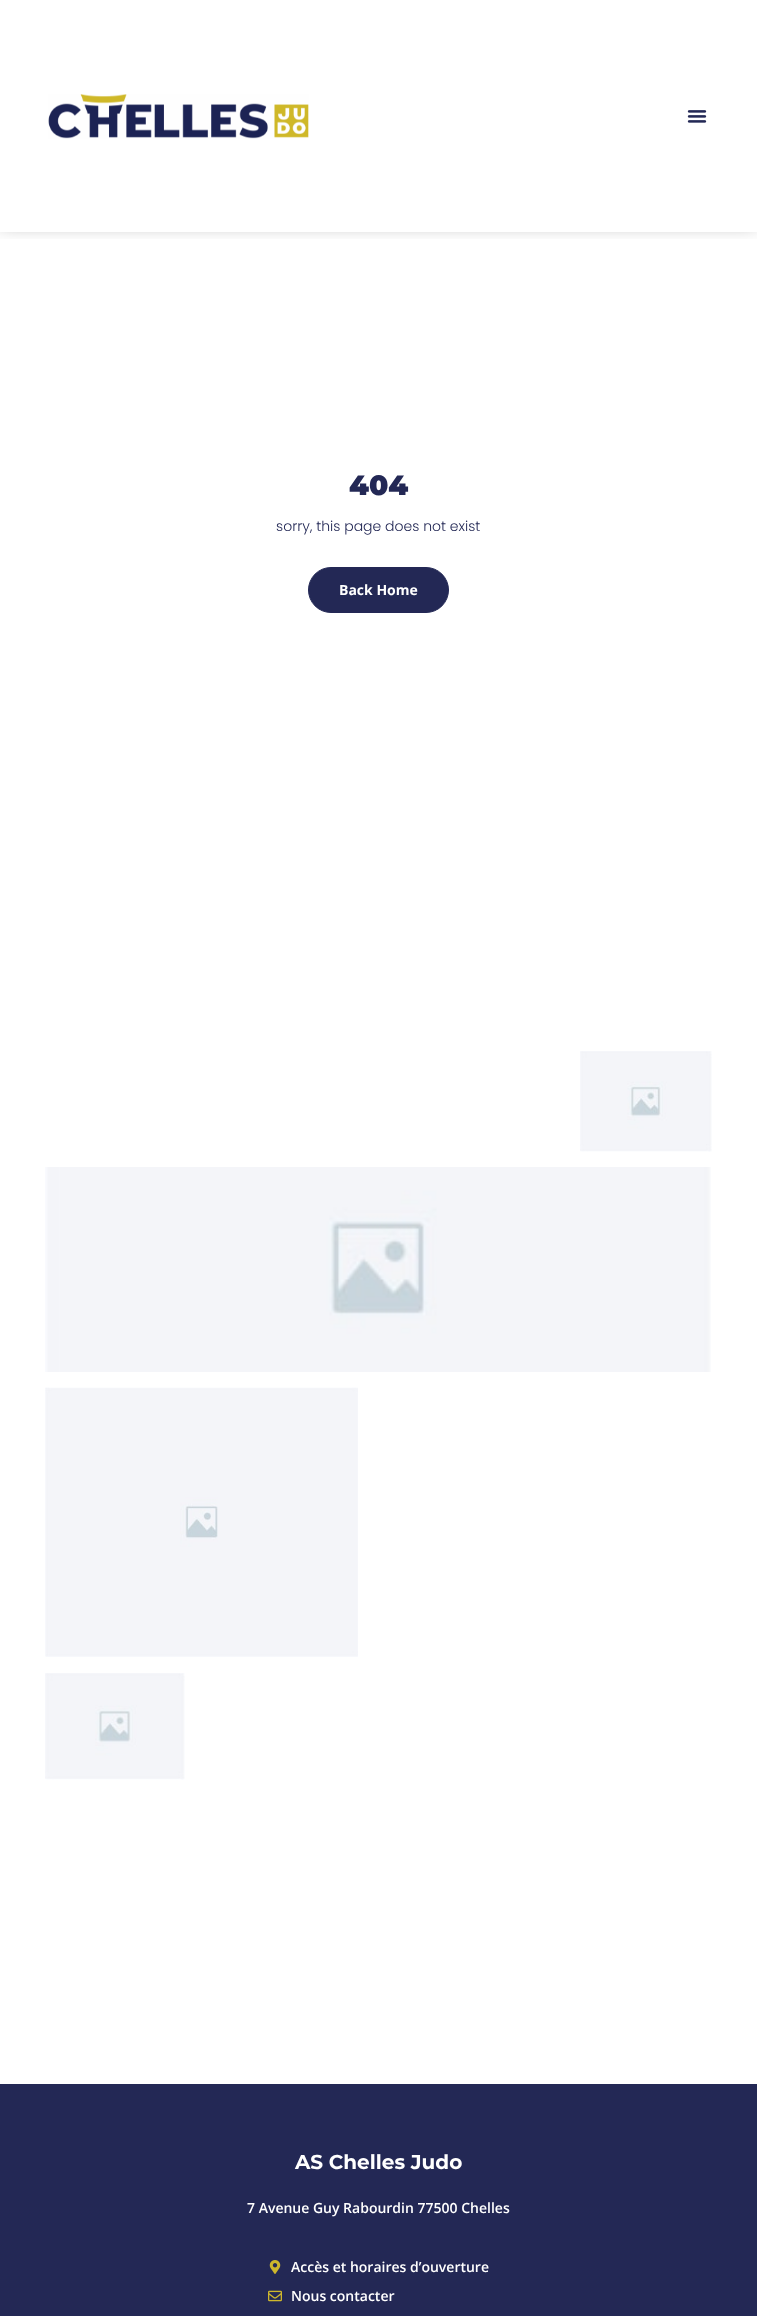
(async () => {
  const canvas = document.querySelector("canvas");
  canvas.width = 757;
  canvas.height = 2316;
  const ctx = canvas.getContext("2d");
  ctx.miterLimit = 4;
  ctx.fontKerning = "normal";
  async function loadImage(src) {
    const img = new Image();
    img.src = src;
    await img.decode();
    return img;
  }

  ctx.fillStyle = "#ffffff";
  ctx.fillRect(0, 0, 757, 2316);
  ctx.save();
  ctx.beginPath();
  ctx.rect(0, 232, 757, 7);
  ctx.clip();
  ctx.fillStyle = "rgba(0, 0, 0, 0.5)";
  ctx.filter = "blur(10px)";
  ctx.beginPath();
  ctx.rect(0, -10, 757, 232);
  ctx.fill();
  ctx.filter = "none";
  ctx.restore();
  ctx.drawImage(await loadImage("img/1.png"), 48, 94, 261, 45);
  ctx.drawImage(await loadImage("img/2.png"), 687, 110, 20, 13);
  ctx.fillStyle = "#232855";
  ctx.beginPath();
  ctx.roundRect(308.5, 567.5, 140, 45, 22.5);
  ctx.fill();
  ctx.strokeStyle = "#232855";
  ctx.stroke();
  ctx.drawImage(await loadImage("img/3.png"), 580, 1051, 132, 101);
  ctx.drawImage(await loadImage("img/4.png"), 45, 1167, 666, 205);
  ctx.drawImage(await loadImage("img/5.png"), 45, 1387, 313, 270);
  ctx.drawImage(await loadImage("img/6.png"), 45, 1673, 140, 107);
  ctx.fillRect(0, 2084, 757, 232);
  ctx.drawImage(await loadImage("img/7.png"), 269, 2260, 12, 14);
  ctx.drawImage(await loadImage("img/8.png"), 268, 2290, 14, 12);
  ctx.font = "900 28px Montserrat";
  ctx.fillText("404", 349, 495);
  ctx.font = "300 14px Poppins";
  ctx.fillText("sorry, this page does not exist", 276, 531);
  ctx.font = "bold 14px Open Sans";
  ctx.fillStyle = "#ffffff";
  ctx.fillText("Back Home", 339, 595);
  ctx.font = "bold 20px Montserrat";
  ctx.fillText("AS Chelles Judo", 295, 2169);
  ctx.font = "600 14px Open Sans";
  for (const [text, x, y] of [
    ["7 Avenue Guy Rabourdin 77500 Chelles", 247, 2213],
    ["Accès et horaires d’ouverture", 291, 2272],
    ["Nous contacter", 291, 2301],
  ]) {
    ctx.fillText(text, x, y);
  }
})();
